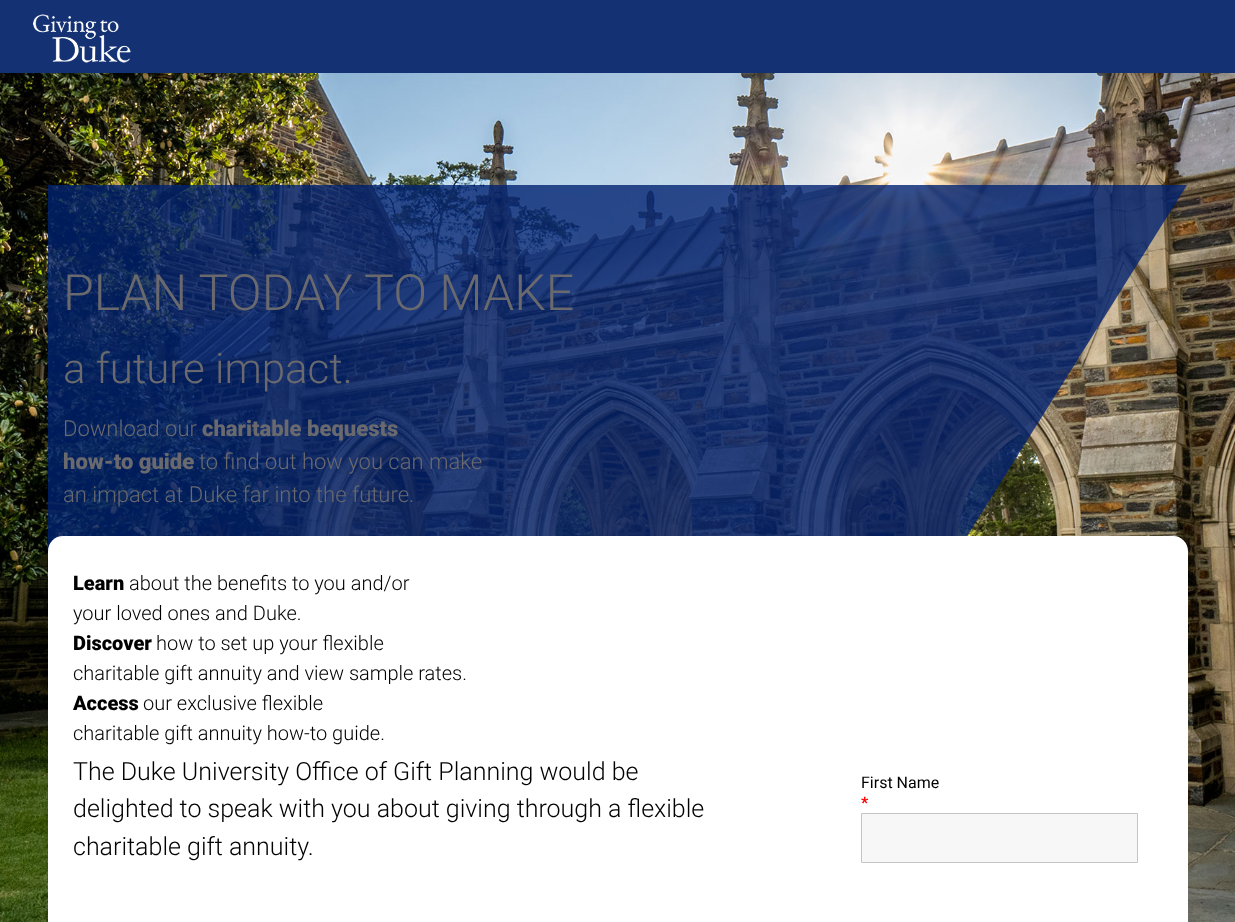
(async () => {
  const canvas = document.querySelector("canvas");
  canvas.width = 1235;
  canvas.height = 922;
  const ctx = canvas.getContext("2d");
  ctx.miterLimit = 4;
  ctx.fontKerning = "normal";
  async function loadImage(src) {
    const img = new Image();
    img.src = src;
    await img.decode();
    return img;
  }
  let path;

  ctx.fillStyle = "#ffffff";
  ctx.fillRect(0, 0, 1235, 922);
  ctx.drawImage(await loadImage("img/1.png"), 0, 73, 1235, 849);
  ctx.fillStyle = "#133173";
  ctx.fillRect(0, 0, 1235, 73);
  ctx.drawImage(await loadImage("img/2.png"), 33, 14, 98, 49);
  ctx.fillStyle = "rgba(0, 34, 112, 0.8)";
  path = new Path2D("M48 185V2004L1187 185Z");
  ctx.fill(path);
  ctx.fillStyle = "#ffffff";
  ctx.beginPath();
  ctx.roundRect(48, 536, 1140, 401, 15);
  ctx.fill();
  ctx.fillStyle = "#f7f7f7";
  ctx.beginPath();
  ctx.rect(861.5, 813.5, 276, 49);
  ctx.fill();
  ctx.strokeStyle = "#c4c4c4";
  ctx.stroke();
  ctx.font = "300 50px Roboto";
  ctx.fillStyle = "#69696e";
  ctx.fillText("PLAN TODAY TO MAKE", 63, 310);
  ctx.font = "300 42px Roboto";
  ctx.fillText("a future impact.", 63, 383);
  ctx.font = "300 22px Roboto";
  ctx.fillText("Download our", 63, 436);
  ctx.font = "900 22px Roboto";
  ctx.fillText("charitable bequests", 202, 436);
  ctx.fillText("how-to guide", 63, 469);
  ctx.font = "300 22px Roboto";
  ctx.fillText("to find out how you can make", 199, 469);
  ctx.fillText("an impact at Duke far into the future.", 63, 502);
  ctx.font = "900 20px Roboto";
  ctx.fillStyle = "#000000";
  ctx.fillText("Learn", 73, 590);
  ctx.font = "300 20px Roboto";
  ctx.fillText("about the benefits to you and/or", 129, 590);
  ctx.fillText("your loved ones and Duke.", 73, 620);
  ctx.font = "900 20px Roboto";
  ctx.fillText("Discover", 73, 650);
  ctx.font = "300 20px Roboto";
  ctx.fillText("how to set up your flexible", 156, 650);
  ctx.fillText("charitable gift annuity and view sample rates.", 73, 680);
  ctx.font = "900 20px Roboto";
  ctx.fillText("Access", 73, 710);
  ctx.font = "300 20px Roboto";
  ctx.fillText("our exclusive flexible", 143, 710);
  ctx.fillText("charitable gift annuity how-to guide.", 73, 740);
  ctx.font = "300 25px Roboto";
  for (const [text, x, y] of [
    ["The Duke University Office of Gift Planning would be", 73, 780],
    ["delighted to speak with you about giving through a flexible", 73, 817],
    ["charitable gift annuity.", 73, 855],
  ]) {
    ctx.fillText(text, x, y);
  }
  ctx.font = "16px Roboto";
  ctx.fillText("First Name", 861, 788);
  ctx.font = "bold 16px Roboto";
  ctx.fillStyle = "#ff0000";
  ctx.fillText("*", 861, 808);
})();
